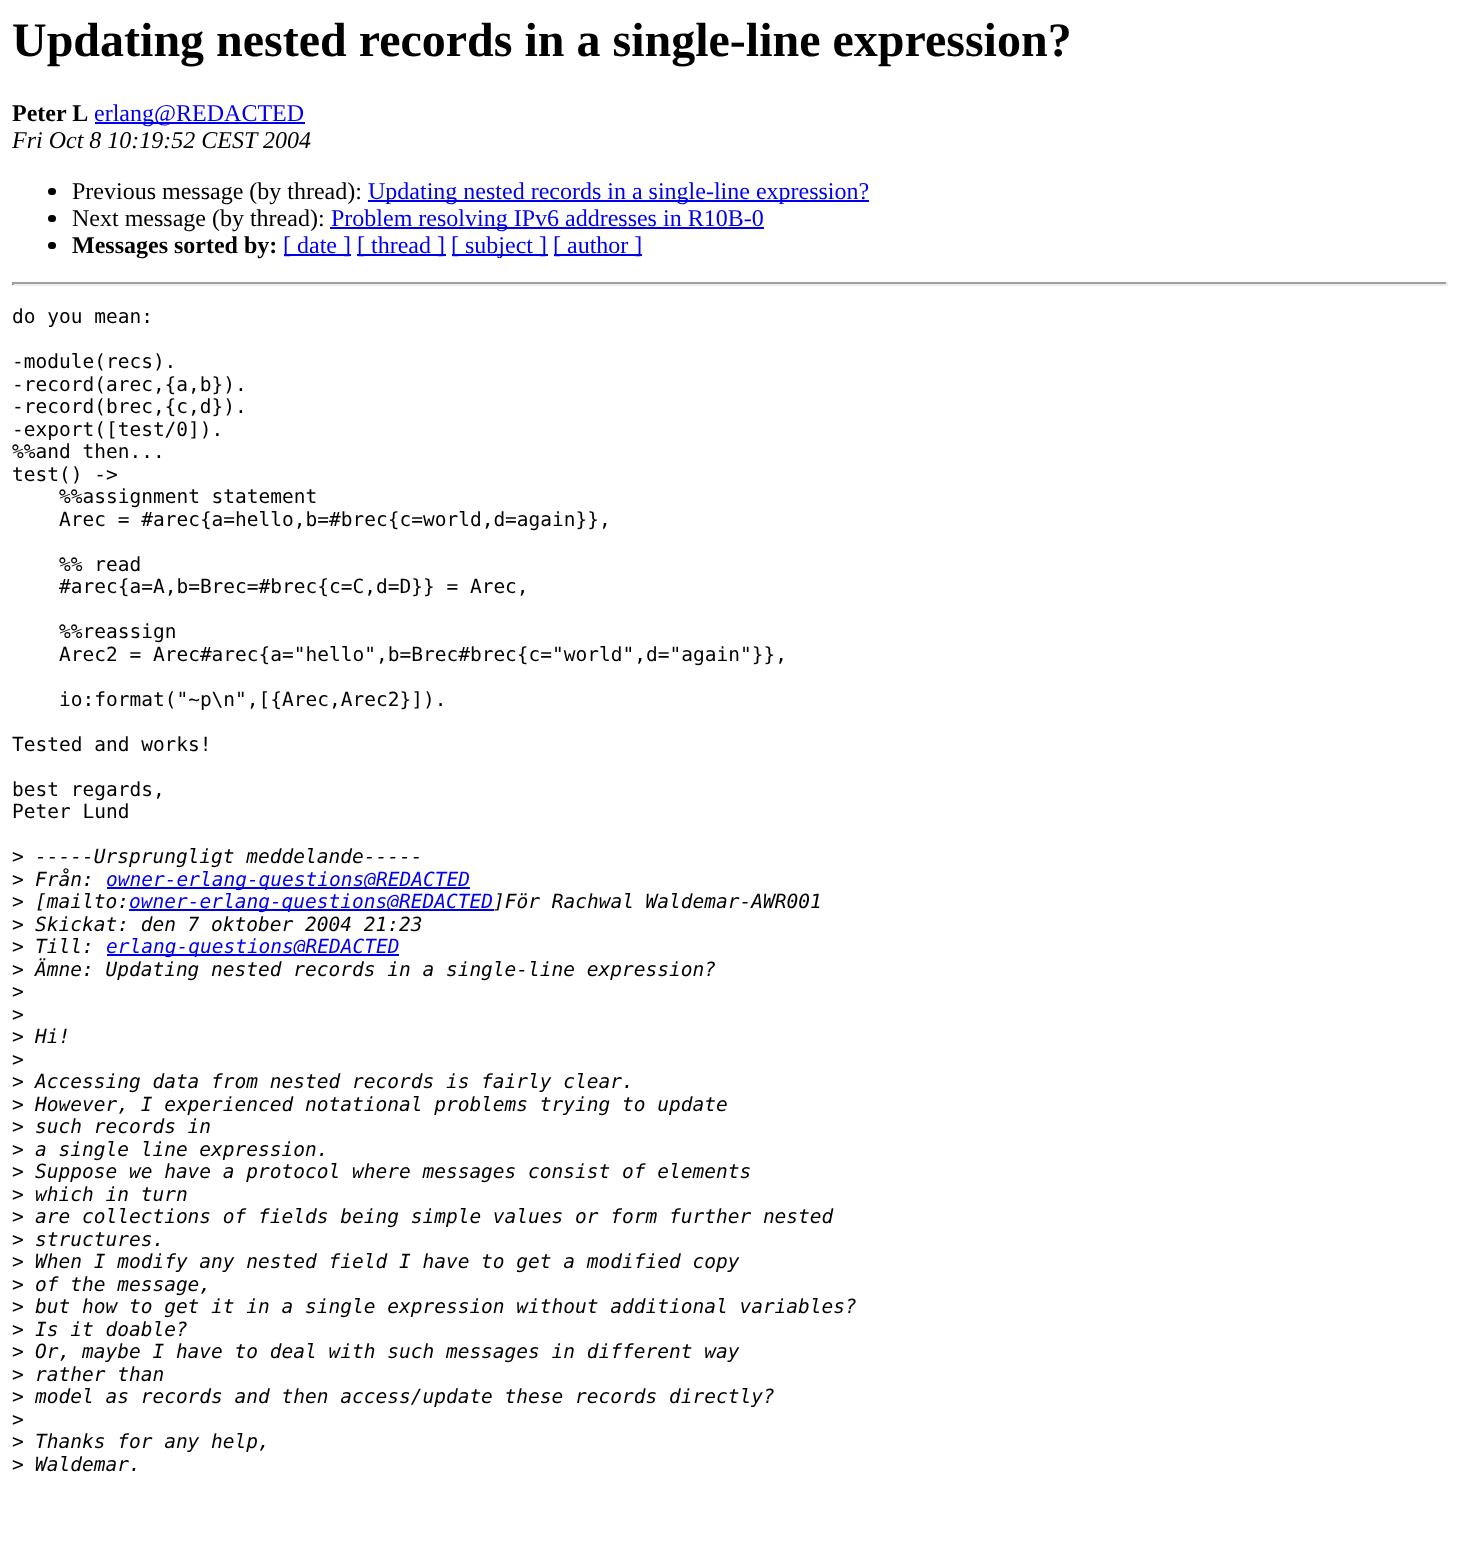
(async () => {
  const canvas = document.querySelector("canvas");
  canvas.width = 1459;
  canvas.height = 1556;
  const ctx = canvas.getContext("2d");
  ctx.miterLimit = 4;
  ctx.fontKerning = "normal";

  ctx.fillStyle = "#ffffff";
  ctx.fillRect(0, 0, 1459, 1556);
  ctx.fillStyle = "#0000ee";
  ctx.fillRect(95, 122, 210, 2);
  ctx.fillStyle = "#000000";
  ctx.beginPath();
  ctx.roundRect(48, 188, 8, 7, 3.5);
  ctx.fill();
  ctx.fillStyle = "#0000ee";
  ctx.fillRect(368, 200, 501, 2);
  ctx.fillStyle = "#000000";
  ctx.beginPath();
  ctx.roundRect(48, 215, 8, 7, 3.5);
  ctx.fill();
  ctx.fillStyle = "#0000ee";
  ctx.fillRect(330, 227, 434, 2);
  ctx.fillStyle = "#000000";
  ctx.beginPath();
  ctx.roundRect(48, 242, 8, 7, 3.5);
  ctx.fill();
  for (const [x, y, w, h, color] of [
    [284, 254, 67, 2, "#0000ee"],
    [357, 254, 89, 2, "#0000ee"],
    [452, 254, 96, 2, "#0000ee"],
    [554, 254, 88, 2, "#0000ee"],
    [12, 282, 1436, 2, "#9f9f9f"],
    [1446, 282, 2, 3, "#eeeeee"],
    [12, 284, 1436, 2, "#eeeeee"],
    [12, 282, 2, 3, "#9f9f9f"],
    [107, 887, 363, 2, "#0000ee"],
    [129, 909, 365, 2, "#0000ee"],
    [107, 954, 292, 2, "#0000ee"],
  ]) {
    ctx.fillStyle = color;
    ctx.fillRect(x, y, w, h);
  }
  ctx.font = "bold 48px Liberation Serif";
  ctx.fillStyle = "#000000";
  ctx.fillText("Updating nested records in a single-line expression?", 12, 56);
  ctx.font = "bold 24px Liberation Serif";
  ctx.fillText("Peter L", 12, 121);
  ctx.font = "24px Liberation Serif";
  ctx.fillStyle = "#0000ee";
  ctx.fillText("erlang@REDACTED", 94, 121);
  ctx.font = "italic 24px Liberation Serif";
  ctx.fillStyle = "#000000";
  ctx.fillText("Fri Oct 8 10:19:52 CEST 2004", 12, 148);
  ctx.font = "24px Liberation Serif";
  ctx.fillText("Previous message (by thread):", 72, 199);
  ctx.fillStyle = "#0000ee";
  ctx.fillText("Updating nested records in a single-line expression?", 368, 199);
  ctx.fillStyle = "#000000";
  ctx.fillText("Next message (by thread):", 72, 226);
  ctx.fillStyle = "#0000ee";
  ctx.fillText("Problem resolving IPv6 addresses in R10B-0", 331, 226);
  ctx.font = "bold 24px Liberation Serif";
  ctx.fillStyle = "#000000";
  ctx.fillText("Messages sorted by:", 72, 253);
  ctx.font = "24px Liberation Serif";
  ctx.fillStyle = "#0000ee";
  for (const [text, x, y] of [
    ["[ date ]", 283, 253],
    ["[ thread ]", 357, 253],
    ["[ subject ]", 451, 253],
    ["[ author ]", 553, 253],
  ]) {
    ctx.fillText(text, x, y);
  }
  ctx.font = "19.5px DejaVu Sans Mono";
  ctx.fillStyle = "#000000";
  for (const [text, x, y] of [
    ["do you mean:", 12, 323],
    ["-module(recs).", 12, 368],
    ["-record(arec,{a,b}).", 12, 391],
    ["-record(brec,{c,d}).", 12, 413],
    ["-export([test/0]).", 12, 436],
    ["%%and then...", 12, 458],
    ["test() ->", 12, 481],
    ["%%assignment statement", 59, 503],
    ["Arec = #arec{a=hello,b=#brec{c=world,d=again}},", 59, 526],
    ["%% read", 59, 571],
    ["#arec{a=A,b=Brec=#brec{c=C,d=D}} = Arec,", 59, 593],
    ["%%reassign", 59, 638],
    ["Arec2 = Arec#arec{a=\"hello\",b=Brec#brec{c=\"world\",d=\"again\"}},", 59, 661],
    ["io:format(\"~p\\n\",[{Arec,Arec2}]).", 59, 706],
    ["Tested and works!", 12, 751],
    ["best regards,", 12, 796],
    ["Peter Lund", 12, 818],
    [">", 12, 863],
  ]) {
    ctx.fillText(text, x, y);
  }
  ctx.font = "italic 19.5px DejaVu Sans Mono";
  ctx.fillText("-----Ursprungligt meddelande-----", 35, 863);
  ctx.font = "19.5px DejaVu Sans Mono";
  ctx.fillText(">", 12, 886);
  ctx.font = "italic 19.5px DejaVu Sans Mono";
  ctx.fillText("Från:", 35, 886);
  ctx.fillStyle = "#0000ee";
  ctx.fillText("owner-erlang-questions@REDACTED", 106, 886);
  ctx.font = "19.5px DejaVu Sans Mono";
  ctx.fillStyle = "#000000";
  ctx.fillText(">", 12, 908);
  ctx.font = "italic 19.5px DejaVu Sans Mono";
  ctx.fillText("[mailto:", 35, 908);
  ctx.fillStyle = "#0000ee";
  ctx.fillText("owner-erlang-questions@REDACTED", 129, 908);
  ctx.fillStyle = "#000000";
  ctx.fillText("]För Rachwal Waldemar-AWR001", 493, 908);
  ctx.font = "19.5px DejaVu Sans Mono";
  ctx.fillText(">", 12, 931);
  ctx.font = "italic 19.5px DejaVu Sans Mono";
  ctx.fillText("Skickat: den 7 oktober 2004 21:23", 35, 931);
  ctx.font = "19.5px DejaVu Sans Mono";
  ctx.fillText(">", 12, 953);
  ctx.font = "italic 19.5px DejaVu Sans Mono";
  ctx.fillText("Till:", 35, 953);
  ctx.fillStyle = "#0000ee";
  ctx.fillText("erlang-questions@REDACTED", 106, 953);
  ctx.font = "19.5px DejaVu Sans Mono";
  ctx.fillStyle = "#000000";
  ctx.fillText(">", 12, 976);
  ctx.font = "italic 19.5px DejaVu Sans Mono";
  ctx.fillText("Ämne: Updating nested records in a single-line expression?", 35, 976);
  ctx.font = "19.5px DejaVu Sans Mono";
  for (const [text, x, y] of [
    [">", 12, 998],
    [">", 12, 1021],
    [">", 12, 1043],
  ]) {
    ctx.fillText(text, x, y);
  }
  ctx.font = "italic 19.5px DejaVu Sans Mono";
  ctx.fillText("Hi!", 35, 1043);
  ctx.font = "19.5px DejaVu Sans Mono";
  ctx.fillText(">", 12, 1066);
  ctx.fillText(">", 12, 1088);
  ctx.font = "italic 19.5px DejaVu Sans Mono";
  ctx.fillText("Accessing data from nested records is fairly clear.", 35, 1088);
  ctx.font = "19.5px DejaVu Sans Mono";
  ctx.fillText(">", 12, 1111);
  ctx.font = "italic 19.5px DejaVu Sans Mono";
  ctx.fillText("However, I experienced notational problems trying to update", 35, 1111);
  ctx.font = "19.5px DejaVu Sans Mono";
  ctx.fillText(">", 12, 1133);
  ctx.font = "italic 19.5px DejaVu Sans Mono";
  ctx.fillText("such records in", 35, 1133);
  ctx.font = "19.5px DejaVu Sans Mono";
  ctx.fillText(">", 12, 1156);
  ctx.font = "italic 19.5px DejaVu Sans Mono";
  ctx.fillText("a single line expression.", 35, 1156);
  ctx.font = "19.5px DejaVu Sans Mono";
  ctx.fillText(">", 12, 1178);
  ctx.font = "italic 19.5px DejaVu Sans Mono";
  ctx.fillText("Suppose we have a protocol where messages consist of elements", 35, 1178);
  ctx.font = "19.5px DejaVu Sans Mono";
  ctx.fillText(">", 12, 1201);
  ctx.font = "italic 19.5px DejaVu Sans Mono";
  ctx.fillText("which in turn", 35, 1201);
  ctx.font = "19.5px DejaVu Sans Mono";
  ctx.fillText(">", 12, 1223);
  ctx.font = "italic 19.5px DejaVu Sans Mono";
  ctx.fillText("are collections of fields being simple values or form further nested", 35, 1223);
  ctx.font = "19.5px DejaVu Sans Mono";
  ctx.fillText(">", 12, 1246);
  ctx.font = "italic 19.5px DejaVu Sans Mono";
  ctx.fillText("structures.", 35, 1246);
  ctx.font = "19.5px DejaVu Sans Mono";
  ctx.fillText(">", 12, 1268);
  ctx.font = "italic 19.5px DejaVu Sans Mono";
  ctx.fillText("When I modify any nested field I have to get a modified copy", 35, 1268);
  ctx.font = "19.5px DejaVu Sans Mono";
  ctx.fillText(">", 12, 1291);
  ctx.font = "italic 19.5px DejaVu Sans Mono";
  ctx.fillText("of the message,", 35, 1291);
  ctx.font = "19.5px DejaVu Sans Mono";
  ctx.fillText(">", 12, 1313);
  ctx.font = "italic 19.5px DejaVu Sans Mono";
  ctx.fillText("but how to get it in a single expression without additional variables?", 35, 1313);
  ctx.font = "19.5px DejaVu Sans Mono";
  ctx.fillText(">", 12, 1336);
  ctx.font = "italic 19.5px DejaVu Sans Mono";
  ctx.fillText("Is it doable?", 35, 1336);
  ctx.font = "19.5px DejaVu Sans Mono";
  ctx.fillText(">", 12, 1358);
  ctx.font = "italic 19.5px DejaVu Sans Mono";
  ctx.fillText("Or, maybe I have to deal with such messages in different way", 35, 1358);
  ctx.font = "19.5px DejaVu Sans Mono";
  ctx.fillText(">", 12, 1381);
  ctx.font = "italic 19.5px DejaVu Sans Mono";
  ctx.fillText("rather than", 35, 1381);
  ctx.font = "19.5px DejaVu Sans Mono";
  ctx.fillText(">", 12, 1403);
  ctx.font = "italic 19.5px DejaVu Sans Mono";
  ctx.fillText("model as records and then access/update these records directly?", 35, 1403);
  ctx.font = "19.5px DejaVu Sans Mono";
  ctx.fillText(">", 12, 1426);
  ctx.fillText(">", 12, 1448);
  ctx.font = "italic 19.5px DejaVu Sans Mono";
  ctx.fillText("Thanks for any help,", 35, 1448);
  ctx.font = "19.5px DejaVu Sans Mono";
  ctx.fillText(">", 12, 1471);
  ctx.font = "italic 19.5px DejaVu Sans Mono";
  ctx.fillText("Waldemar.", 35, 1471);
})();
